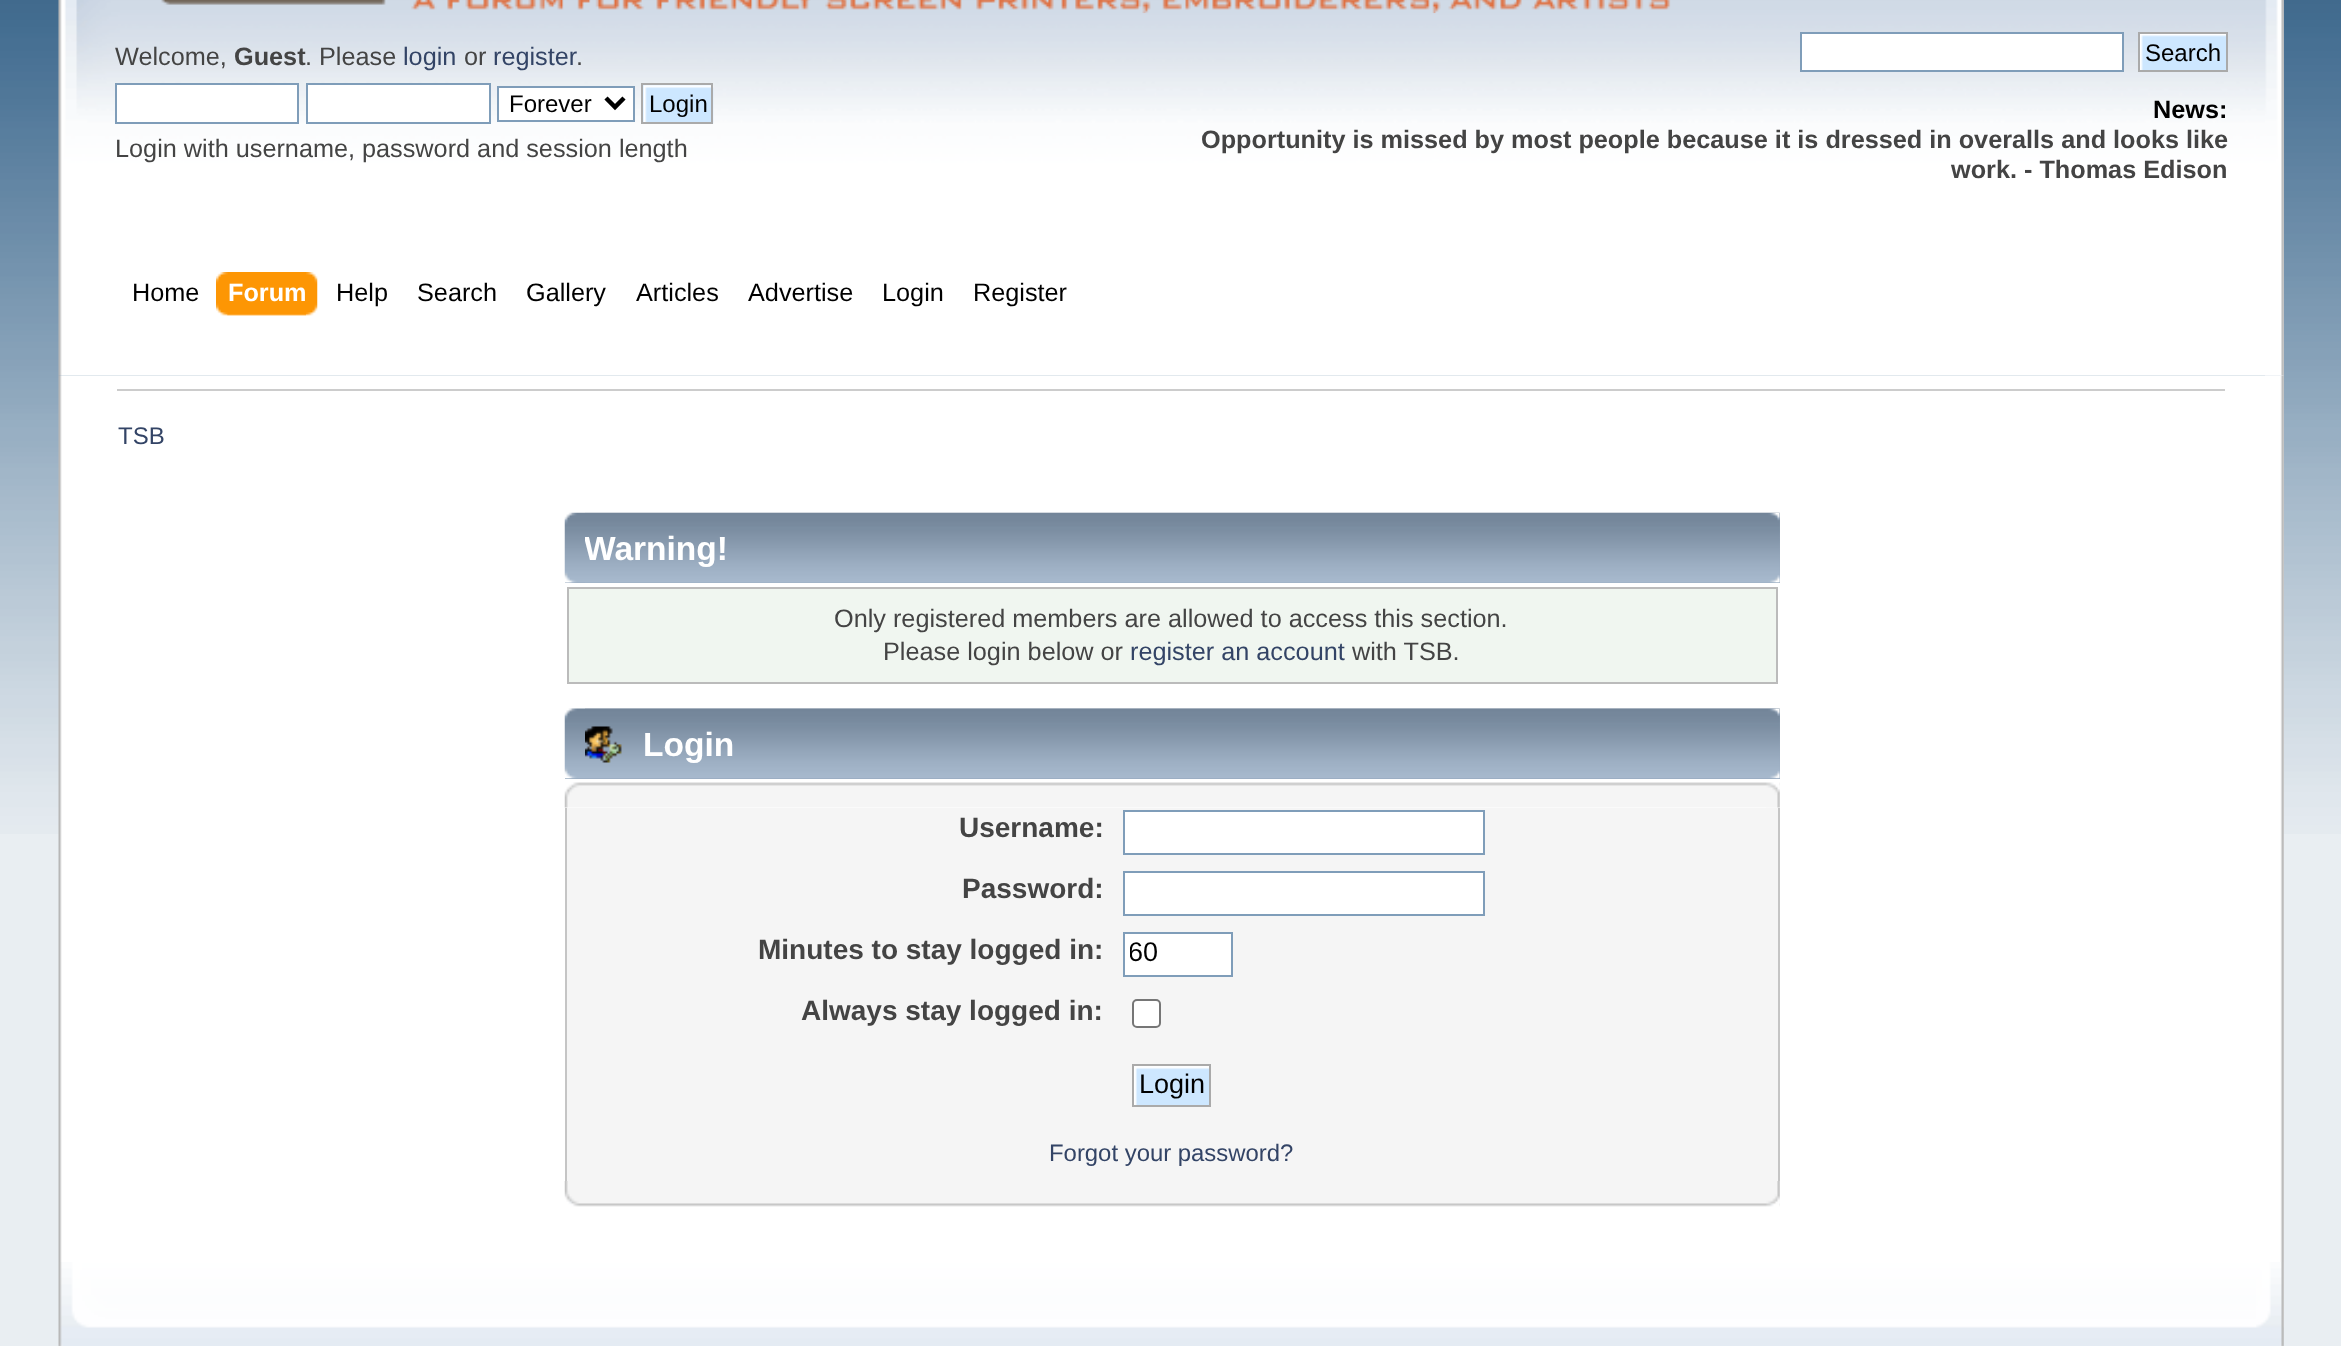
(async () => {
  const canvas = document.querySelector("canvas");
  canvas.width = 2341;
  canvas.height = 1346;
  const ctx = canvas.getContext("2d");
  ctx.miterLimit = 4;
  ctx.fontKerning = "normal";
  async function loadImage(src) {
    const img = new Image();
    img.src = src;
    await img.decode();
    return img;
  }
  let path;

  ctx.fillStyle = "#e9eef2";
  ctx.fillRect(0, 0, 2341, 1346);
  ctx.drawImage(await loadImage("img/1.png"), 0, 0, 2341, 834);
  ctx.drawImage(await loadImage("img/2.png"), 58, 0, 2226, 376);
  ctx.drawImage(await loadImage("img/3.png"), 2265, 0, 19, 376);
  ctx.drawImage(await loadImage("img/4.png"), 161, 0, 1510, 14);
  ctx.fillStyle = "#ffffff";
  ctx.beginPath();
  ctx.rect(116, 84, 182, 39);
  ctx.fill();
  ctx.strokeStyle = "#7f9db9";
  ctx.lineWidth = 2;
  ctx.stroke();
  ctx.beginPath();
  ctx.rect(307, 84, 183, 39);
  ctx.fill();
  ctx.stroke();
  ctx.beginPath();
  ctx.rect(498, 87, 136, 34);
  ctx.fill();
  ctx.stroke();
  path = new Path2D("M606 98L615 107L624 98");
  ctx.strokeStyle = "#000000";
  ctx.lineWidth = 4.5;
  ctx.stroke(path);
  ctx.fillStyle = "#cde7ff";
  ctx.fillRect(643, 85, 68, 37);
  ctx.drawImage(await loadImage("img/5.png"), 643, 85, 71, 39);
  ctx.strokeStyle = "#aaaaaa";
  ctx.lineWidth = 2;
  ctx.strokeRect(642, 84, 70, 39);
  ctx.fillStyle = "#ffffff";
  ctx.beginPath();
  ctx.rect(1801, 33, 322, 38);
  ctx.fill();
  ctx.strokeStyle = "#7f9db9";
  ctx.stroke();
  ctx.drawImage(await loadImage("img/6.png"), 2140, 34, 86, 36);
  ctx.strokeStyle = "#aaaaaa";
  ctx.strokeRect(2139, 33, 88, 38);
  ctx.drawImage(await loadImage("img/7.png"), 227, 272, 91, 44);
  ctx.drawImage(await loadImage("img/8.png"), 216, 272, 90, 44);
  ctx.drawImage(await loadImage("img/9.png"), 58, 375, 2226, 887);
  ctx.drawImage(await loadImage("img/10.png"), 2280, 375, 4, 887);
  ctx.fillStyle = "#cccccc";
  ctx.fillRect(117, 389, 2108, 2);
  ctx.fillStyle = "#99abbf";
  ctx.fillRect(565, 513, 1215, 70);
  ctx.drawImage(await loadImage("img/11.png"), 564, 512, 1216, 71);
  ctx.drawImage(await loadImage("img/12.png"), 585, 512, 1195, 71);
  ctx.fillStyle = "#f0f6f0";
  ctx.beginPath();
  ctx.rect(568, 588, 1209, 95);
  ctx.fill();
  ctx.strokeStyle = "#bbbbbb";
  ctx.stroke();
  ctx.fillStyle = "#99abbf";
  ctx.fillRect(565, 709, 1215, 70);
  ctx.drawImage(await loadImage("img/13.png"), 564, 708, 1216, 71);
  ctx.drawImage(await loadImage("img/14.png"), 585, 708, 1195, 71);
  ctx.drawImage(await loadImage("img/15.png"), 585, 726, 37, 37);
  ctx.drawImage(await loadImage("img/16.png"), 564, 782, 1216, 26);
  ctx.drawImage(await loadImage("img/17.png"), 1766, 782, 14, 26);
  for (const [x, y, w, h, color] of [
    [567, 808, 1211, 373, "#f5f5f5"],
    [1778, 808, 2, 373, "#c5c5c5"],
    [565, 808, 2, 373, "#c5c5c5"],
  ]) {
    ctx.fillStyle = color;
    ctx.fillRect(x, y, w, h);
  }
  ctx.fillStyle = "#ffffff";
  ctx.beginPath();
  ctx.rect(1124, 811, 360, 43);
  ctx.fill();
  ctx.strokeStyle = "#7f9db9";
  ctx.stroke();
  ctx.beginPath();
  ctx.rect(1124, 872, 360, 43);
  ctx.fill();
  ctx.stroke();
  ctx.beginPath();
  ctx.rect(1124, 933, 108, 43);
  ctx.fill();
  ctx.stroke();
  ctx.beginPath();
  ctx.roundRect(1133, 1000, 27, 27, 4);
  ctx.fill();
  ctx.strokeStyle = "#767676";
  ctx.stroke();
  ctx.drawImage(await loadImage("img/18.png"), 1134, 1066, 75, 39);
  ctx.strokeStyle = "#aaaaaa";
  ctx.strokeRect(1133, 1065, 77, 41);
  ctx.drawImage(await loadImage("img/19.png"), 564, 1181, 1216, 26);
  ctx.drawImage(await loadImage("img/20.png"), 1766, 1181, 14, 26);
  ctx.drawImage(await loadImage("img/21.png"), 58, 1262, 2226, 84);
  ctx.drawImage(await loadImage("img/22.png"), 2256, 1262, 28, 84);
  ctx.font = "25.25px Liberation Sans";
  ctx.fillStyle = "#444444";
  ctx.fillText("Welcome,", 115, 65);
  ctx.font = "bold 25.25px Liberation Sans";
  ctx.fillText("Guest", 234, 65);
  ctx.font = "25.25px Liberation Sans";
  ctx.fillText(". Please", 305, 65);
  ctx.fillStyle = "#334466";
  ctx.fillText("login", 403, 65);
  ctx.fillStyle = "#444444";
  ctx.fillText("or", 464, 65);
  ctx.fillStyle = "#334466";
  ctx.fillText("register", 493, 65);
  ctx.fillStyle = "#444444";
  ctx.fillText(".", 576, 65);
  ctx.font = "24px Liberation Sans";
  ctx.fillStyle = "#000000";
  ctx.fillText("Forever", 509, 112);
  ctx.fillText("Login", 649, 112);
  ctx.font = "25.25px Liberation Sans";
  ctx.fillStyle = "#444444";
  ctx.fillText("Login with username, password and session length", 115, 157);
  ctx.font = "24px Liberation Sans";
  ctx.fillStyle = "#000000";
  ctx.fillText("Search", 2145, 61);
  ctx.font = "bold 25.25px Liberation Sans";
  ctx.fillText("News:", 2153, 118);
  ctx.fillStyle = "#444444";
  ctx.fillText("Opportunity is missed by most people because it is dressed in overalls and looks like", 1201, 148);
  ctx.fillText("work. - Thomas Edison", 1951, 178);
  ctx.font = "25.25px Liberation Sans";
  ctx.fillStyle = "#000000";
  ctx.fillText("Home", 132, 301);
  ctx.font = "bold 25.25px Liberation Sans";
  ctx.fillStyle = "#ffffff";
  ctx.fillText("Forum", 228, 301);
  ctx.font = "25.25px Liberation Sans";
  ctx.fillStyle = "#000000";
  for (const [text, x, y] of [
    ["Help", 336, 301],
    ["Search", 417, 301],
    ["Gallery", 526, 301],
    ["Articles", 636, 301],
    ["Advertise", 748, 301],
    ["Login", 882, 301],
    ["Register", 973, 301],
  ]) {
    ctx.fillText(text, x, y);
  }
  ctx.font = "24px Liberation Sans";
  ctx.fillStyle = "#334466";
  ctx.fillText("TSB", 118, 444);
  ctx.save();
  ctx.beginPath();
  ctx.rect(585, 513, 1195, 70);
  ctx.clip();
  ctx.font = "bold 33.5px Liberation Sans";
  ctx.fillStyle = "#ffffff";
  ctx.fillText("Warning!", 584, 560);
  ctx.restore();
  ctx.font = "25.25px Liberation Sans";
  ctx.fillStyle = "#444444";
  ctx.fillText("Only registered members are allowed to access this section.", 834, 627);
  ctx.fillText("Please login below or", 883, 660);
  ctx.fillStyle = "#334466";
  ctx.fillText("register an account", 1130, 660);
  ctx.fillStyle = "#444444";
  ctx.fillText("with TSB.", 1352, 660);
  ctx.font = "bold 33.5px Liberation Sans";
  ctx.fillStyle = "#ffffff";
  ctx.fillText("Login", 643, 756);
  ctx.font = "bold 28px Liberation Sans";
  ctx.fillStyle = "#444444";
  for (const [text, x, y] of [
    ["Username:", 959, 837],
    ["Password:", 962, 898],
    ["Minutes to stay logged in:", 758, 959],
  ]) {
    ctx.fillText(text, x, y);
  }
  ctx.save();
  ctx.beginPath();
  ctx.rect(1130, 938, 96, 32);
  ctx.clip();
  ctx.font = "27px Liberation Sans";
  ctx.fillStyle = "#000000";
  ctx.fillText("60", 1128, 961);
  ctx.restore();
  ctx.fillText("Always stay logged in:", 801, 1020);
  ctx.font = "27px Liberation Sans";
  ctx.fillStyle = "#000000";
  ctx.fillText("Login", 1139, 1093);
  ctx.font = "23.9px Liberation Sans";
  ctx.fillStyle = "#334466";
  ctx.fillText("Forgot your password?", 1049, 1161);
})();
